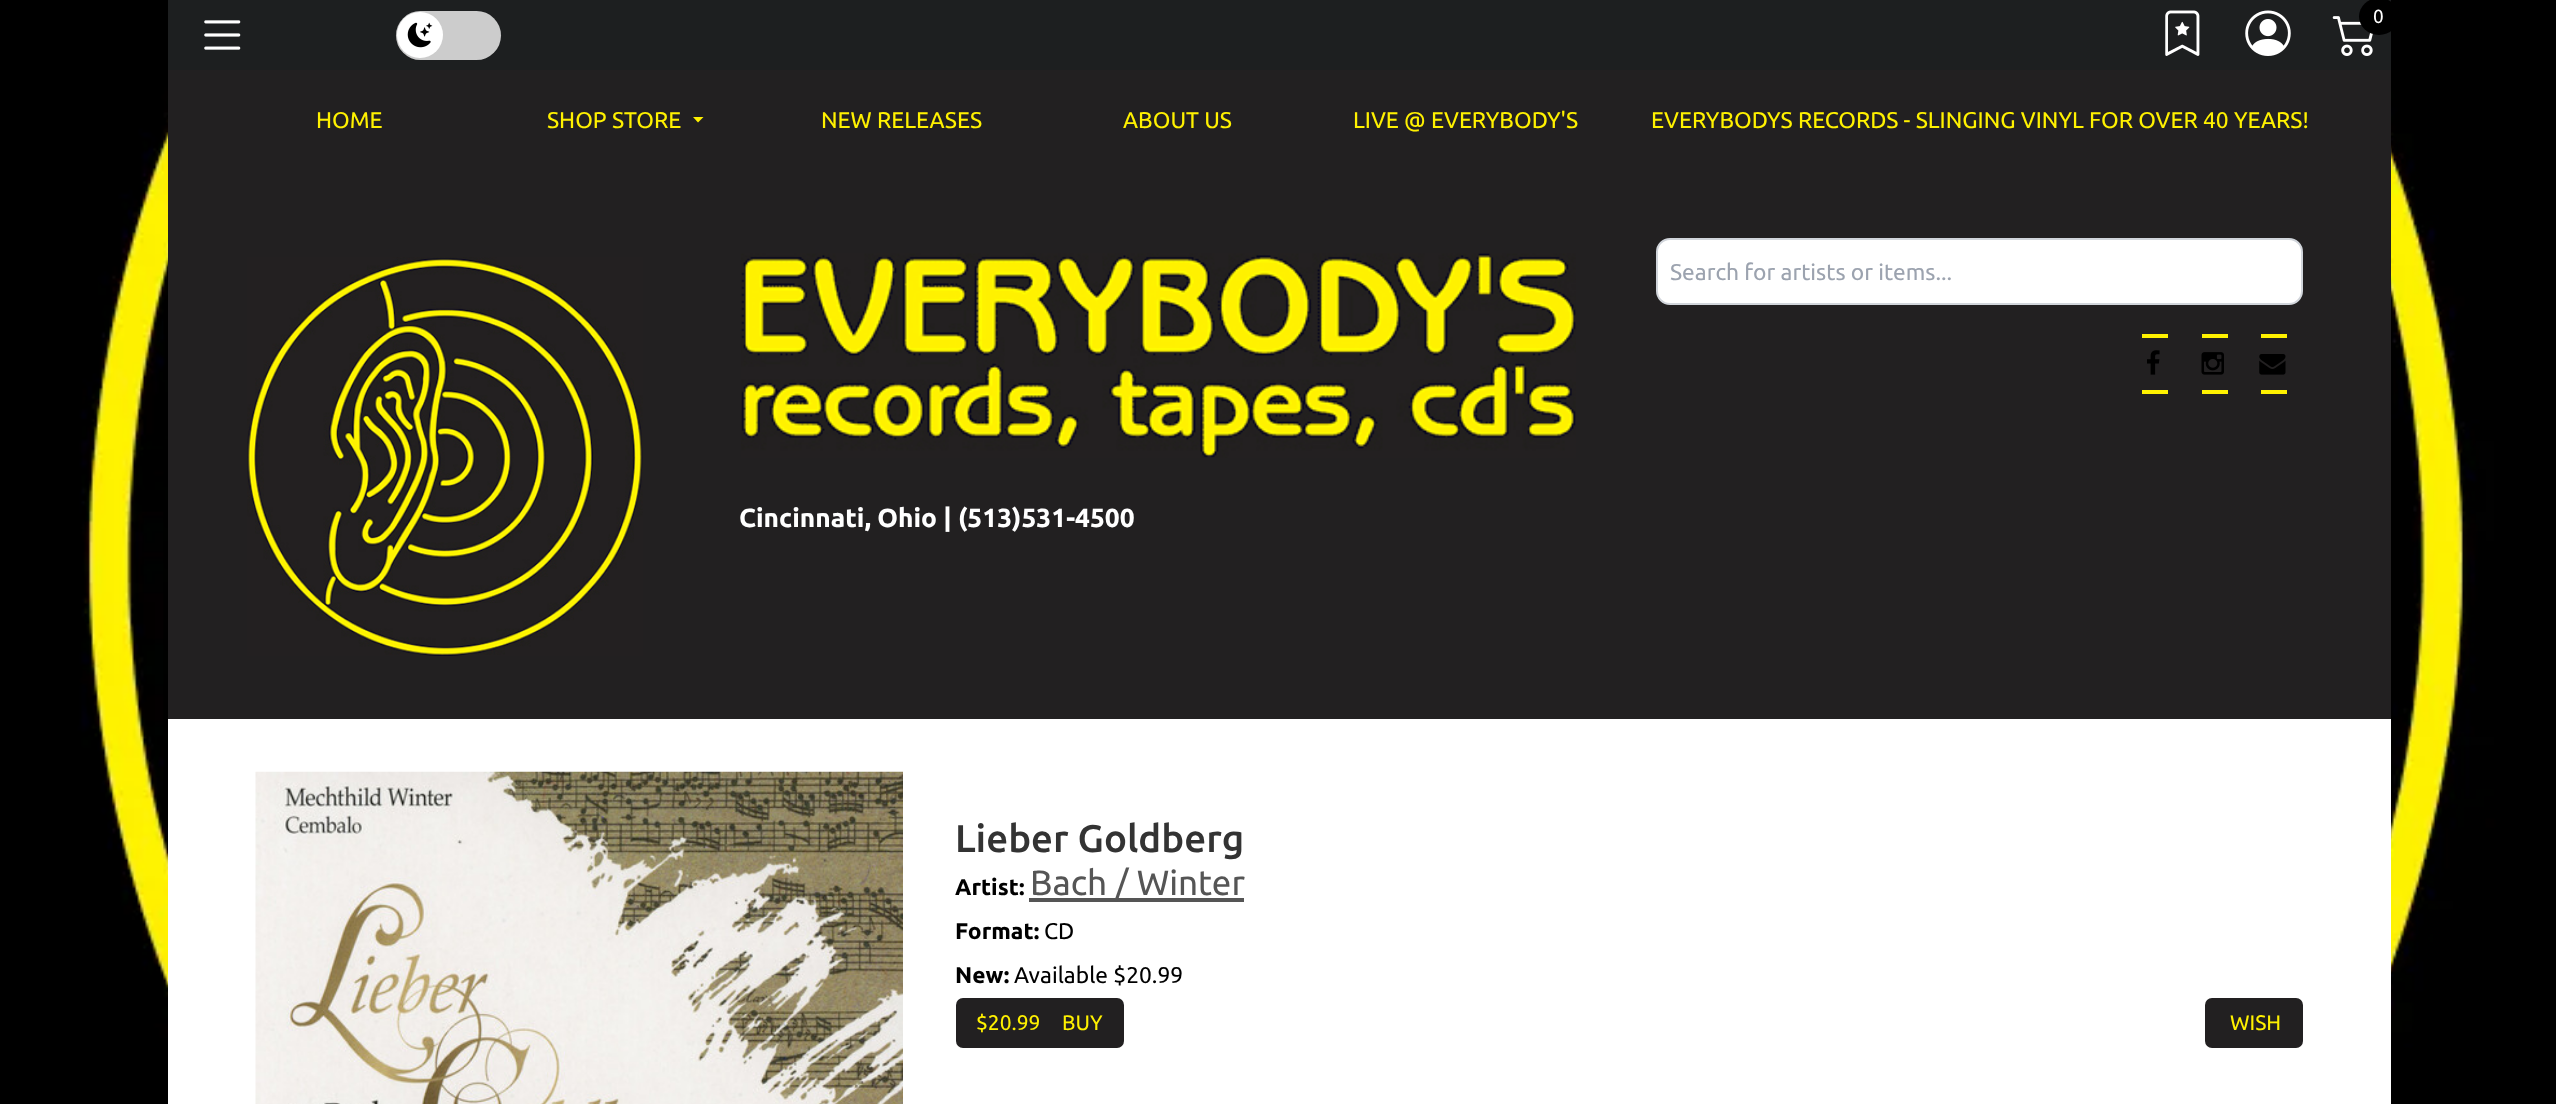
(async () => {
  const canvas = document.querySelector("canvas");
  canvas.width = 2556;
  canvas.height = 1104;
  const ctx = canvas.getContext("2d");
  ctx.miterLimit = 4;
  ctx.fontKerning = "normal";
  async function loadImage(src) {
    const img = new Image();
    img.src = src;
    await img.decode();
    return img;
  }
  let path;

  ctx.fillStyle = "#ffffff";
  ctx.fillRect(0, 0, 2556, 1104);
  ctx.drawImage(await loadImage("img/1.png"), 0, 0, 2556, 1104);
  ctx.fillRect(168, 719, 2223, 385);
  ctx.fillStyle = "#1d1f20";
  ctx.fillRect(168, 0, 2223, 70);
  ctx.drawImage(await loadImage("img/2.png"), 204, 20, 37, 30);
  ctx.fillStyle = "#cccccc";
  ctx.beginPath();
  ctx.roundRect(396, 11, 105, 49, 24.5);
  ctx.fill();
  ctx.fillStyle = "#ffffff";
  ctx.beginPath();
  ctx.arc(420, 35, 23, 0, Math.PI * 2);
  ctx.fill();
  ctx.drawImage(await loadImage("img/3.png"), 407, 22, 26, 26);
  ctx.drawImage(await loadImage("img/4.png"), 2165, 10, 35, 46);
  ctx.drawImage(await loadImage("img/5.png"), 2245, 10, 46, 46);
  ctx.drawImage(await loadImage("img/6.png"), 2332, 16, 41, 40);
  ctx.fillStyle = "#000000";
  ctx.beginPath();
  ctx.ellipse(2379, 16.5, 20, 18.5, 0, 0, Math.PI * 2);
  ctx.fill();
  ctx.fillStyle = "#222021";
  ctx.fillRect(168, 70, 2223, 649);
  ctx.fillStyle = "#fff100";
  path = new Path2D("M693 117H703.5L698 122.5Z");
  ctx.fill(path);
  ctx.fillStyle = "#ffffff";
  ctx.beginPath();
  ctx.roundRect(1657, 239, 645, 65, 13);
  ctx.fill();
  ctx.strokeStyle = "#d1d5db";
  ctx.lineWidth = 2;
  ctx.stroke();
  ctx.fillStyle = "#fff100";
  ctx.fillRect(2142, 334, 26, 4);
  ctx.fillRect(2142, 390, 26, 4);
  ctx.drawImage(await loadImage("img/7.png"), 2147, 350, 13, 25);
  ctx.fillRect(2202, 334, 26, 4);
  ctx.fillRect(2202, 390, 26, 4);
  ctx.drawImage(await loadImage("img/8.png"), 2201, 352, 23, 23);
  ctx.fillRect(2261, 334, 26, 4);
  ctx.fillRect(2261, 390, 26, 4);
  ctx.drawImage(await loadImage("img/9.png"), 2259, 354, 27, 21);
  ctx.drawImage(await loadImage("img/10.png"), 247, 257, 396, 399);
  ctx.drawImage(await loadImage("img/11.png"), 741, 253, 835, 205);
  ctx.drawImage(await loadImage("img/12.png"), 255, 771, 648, 333);
  ctx.fillStyle = "#555555";
  ctx.fillRect(1029, 898, 215, 4);
  ctx.fillStyle = "#222021";
  ctx.beginPath();
  ctx.roundRect(956, 998, 168, 50, 7);
  ctx.fill();
  ctx.beginPath();
  ctx.roundRect(2205, 998, 98, 50, 7);
  ctx.fill();
  ctx.font = "19px Ubuntu";
  ctx.fillStyle = "#ffffff";
  ctx.fillText("0", 2373, 23);
  ctx.font = "22.75px Ubuntu";
  ctx.fillStyle = "#fff100";
  for (const [text, x, y] of [
    ["HOME", 316, 128],
    ["SHOP STORE", 547, 128],
    ["NEW RELEASES", 821, 128],
    ["ABOUT US", 1123, 128],
    ["LIVE @ EVERYBODY'S", 1353, 128],
    ["EVERYBODYS RECORDS - SLINGING VINYL FOR OVER 40 YEARS!", 1651, 128],
  ]) {
    ctx.fillText(text, x, y);
  }
  ctx.fillStyle = "#9ca3af";
  ctx.fillText("Search for artists or items...", 1670, 280);
  ctx.font = "bold 26.25px Ubuntu";
  ctx.fillStyle = "#ffffff";
  ctx.fillText("Cincinnati, Ohio | (513)531-4500", 739, 527);
  ctx.font = "500 38.5px Ubuntu";
  ctx.fillStyle = "#333333";
  ctx.fillText("Lieber Goldberg", 955, 852);
  ctx.font = "bold 22.75px Ubuntu";
  ctx.fillStyle = "#000000";
  ctx.fillText("Artist:", 955, 895);
  ctx.font = "35px Ubuntu";
  ctx.fillStyle = "#555555";
  ctx.fillText("Bach / Winter", 1030, 895);
  ctx.font = "bold 22.75px Ubuntu";
  ctx.fillStyle = "#000000";
  ctx.fillText("Format:", 955, 939);
  ctx.font = "22.75px Ubuntu";
  ctx.fillText("CD", 1044, 939);
  ctx.font = "bold 22.75px Ubuntu";
  ctx.fillText("New:", 955, 983);
  ctx.font = "22.75px Ubuntu";
  ctx.fillText("Available $20.99", 1014, 983);
  ctx.font = "21px Ubuntu";
  ctx.fillStyle = "#fff100";
  for (const [text, x, y] of [
    ["$20.99", 976, 1030],
    ["BUY", 1062, 1030],
    ["WISH", 2230, 1030],
  ]) {
    ctx.fillText(text, x, y);
  }
})();
